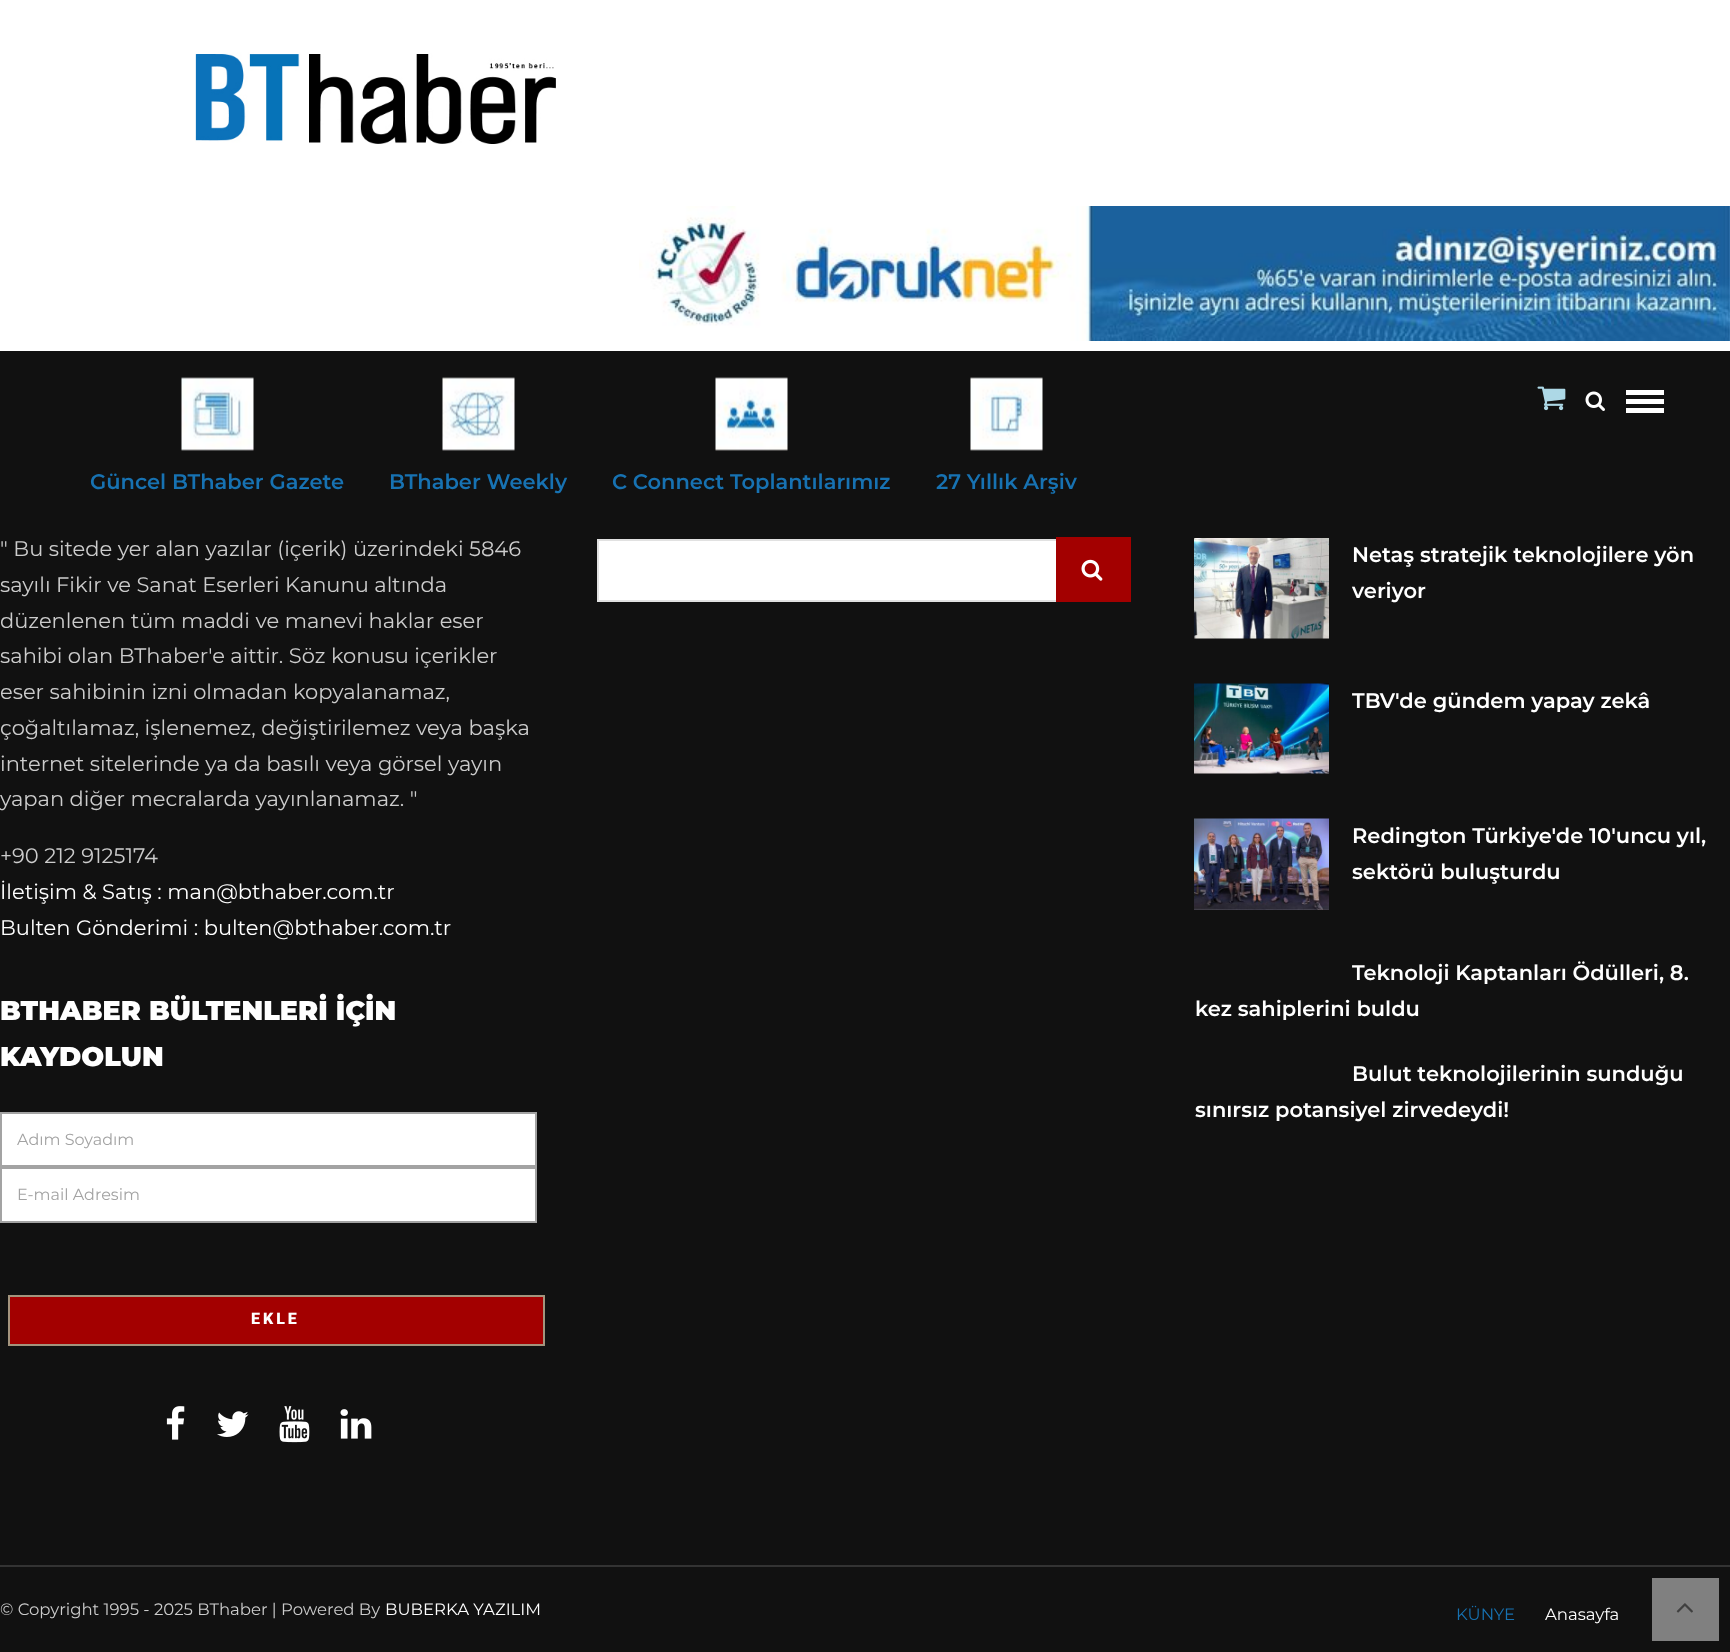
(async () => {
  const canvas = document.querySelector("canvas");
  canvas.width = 1730;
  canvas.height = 1652;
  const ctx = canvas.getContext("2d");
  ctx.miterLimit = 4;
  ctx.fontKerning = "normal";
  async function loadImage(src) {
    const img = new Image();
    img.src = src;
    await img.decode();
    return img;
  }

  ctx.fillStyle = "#ffffff";
  ctx.fillRect(0, 0, 1730, 1652);
  ctx.drawImage(await loadImage("img/1.png"), 195, 22, 368, 122);
  ctx.drawImage(await loadImage("img/2.png"), 639, 206, 1091, 135);
  ctx.fillStyle = "#111111";
  ctx.fillRect(0, 351, 1730, 1301);
  ctx.drawImage(await loadImage("img/3.png"), 1537, 386, 29, 25);
  ctx.drawImage(await loadImage("img/4.png"), 1585, 391, 20, 20);
  for (const [x, y, w, h, color] of [
    [1626, 390, 38, 5, "#ffffff"],
    [1626, 399, 38, 5, "#ffffff"],
    [1626, 408, 38, 5, "#ffffff"],
  ]) {
    ctx.fillStyle = color;
    ctx.fillRect(x, y, w, h);
  }
  ctx.drawImage(await loadImage("img/5.png"), 181, 377, 73, 74);
  ctx.drawImage(await loadImage("img/6.png"), 442, 377, 73, 74);
  ctx.drawImage(await loadImage("img/7.png"), 715, 377, 73, 74);
  ctx.drawImage(await loadImage("img/8.png"), 970, 377, 73, 74);
  ctx.beginPath();
  ctx.rect(1, 1113, 535, 53);
  ctx.fill();
  ctx.strokeStyle = "#a3a3a3";
  ctx.lineWidth = 2;
  ctx.stroke();
  ctx.beginPath();
  ctx.rect(1, 1168, 535, 54);
  ctx.fill();
  ctx.stroke();
  ctx.fillStyle = "#a30000";
  ctx.beginPath();
  ctx.rect(9, 1296, 535, 49);
  ctx.fill();
  ctx.strokeStyle = "#a3947d";
  ctx.stroke();
  ctx.drawImage(await loadImage("img/9.png"), 166, 1406, 19, 34);
  ctx.drawImage(await loadImage("img/10.png"), 217, 1411, 32, 26);
  ctx.drawImage(await loadImage("img/11.png"), 279, 1406, 31, 37);
  ctx.drawImage(await loadImage("img/12.png"), 340, 1409, 32, 30);
  ctx.fillStyle = "#ffffff";
  ctx.fillRect(599, 541, 457, 59);
  ctx.strokeStyle = "#e1e1e1";
  ctx.strokeRect(598, 540, 460, 61);
  ctx.fillStyle = "#a30000";
  ctx.fillRect(1056, 537, 75, 65);
  ctx.drawImage(await loadImage("img/13.png"), 1081, 559, 22, 22);
  ctx.drawImage(await loadImage("img/14.png"), 1194, 538, 135, 101);
  ctx.drawImage(await loadImage("img/15.png"), 1194, 683, 135, 91);
  ctx.drawImage(await loadImage("img/16.png"), 1194, 818, 135, 92);
  ctx.fillStyle = "#333333";
  ctx.fillRect(0, 1565, 1730, 2);
  ctx.fillStyle = "#808080";
  ctx.fillRect(1652, 1578, 67, 63);
  ctx.drawImage(await loadImage("img/17.png"), 1676, 1603, 17, 10);
  ctx.font = "600 21px Montserrat";
  ctx.fillStyle = "#1772b2";
  for (const [text, x, y] of [
    ["Güncel BThaber Gazete", 90, 489],
    ["BThaber Weekly", 389, 489],
    ["C Connect Toplantılarımız", 612, 489],
    ["27 Yıllık Arşiv", 936, 489],
  ]) {
    ctx.fillText(text, x, y);
  }
  ctx.font = "21px Montserrat";
  ctx.fillStyle = "#cccccc";
  for (const [text, x, y] of [
    ["\" Bu sitede yer alan yazılar (içerik) üzerindeki 5846", 0, 556],
    ["sayılı Fikir ve Sanat Eserleri Kanunu altında", 0, 592],
    ["düzenlenen tüm maddi ve manevi haklar eser", 0, 628],
    ["sahibi olan BThaber'e aittir. Söz konusu içerikler", 0, 663],
    ["eser sahibinin izni olmadan kopyalanamaz,", 0, 699],
    ["çoğaltılamaz, işlenemez, değiştirilemez veya başka", 0, 735],
    ["internet sitelerinde ya da basılı veya görsel yayın", 0, 771],
    ["yapan diğer mecralarda yayınlanamaz. \"", 0, 806],
    ["+90 212 9125174", 0, 863],
  ]) {
    ctx.fillText(text, x, y);
  }
  ctx.fillStyle = "#ffffff";
  ctx.fillText("İletişim & Satış : man@bthaber.com.tr", 0, 899);
  ctx.fillText("Bulten Gönderimi : bulten@bthaber.com.tr", 0, 935);
  ctx.font = "900 27px Montserrat";
  ctx.fillText("BTHABER BÜLTENLERİ İÇİN", 0, 1020);
  ctx.fillText("KAYDOLUN", 0, 1066);
  ctx.font = "16px Montserrat";
  ctx.fillStyle = "#a3a3a3";
  ctx.fillText("Adım Soyadım", 17, 1145);
  ctx.fillText("E-mail Adresim", 17, 1200);
  ctx.letterSpacing = "3px";
  ctx.font = "900 16px Roboto";
  ctx.fillStyle = "#ffffff";
  ctx.fillText("EKLE", 251, 1324);
  ctx.letterSpacing = "0px";
  ctx.font = "600 21px Montserrat";
  for (const [text, x, y] of [
    ["Netaş stratejik teknolojilere yön", 1352, 562],
    ["veriyor", 1352, 598],
    ["TBV'de gündem yapay zekâ", 1352, 708],
    ["Redington Türkiye'de 10'uncu yıl,", 1352, 843],
    ["sektörü buluşturdu", 1352, 879],
    ["Teknoloji Kaptanları Ödülleri, 8.", 1352, 980],
    ["kez sahiplerini buldu", 1195, 1016],
    ["Bulut teknolojilerinin sunduğu", 1352, 1081],
    ["sınırsız potansiyel zirvedeydi!", 1195, 1117],
  ]) {
    ctx.fillText(text, x, y);
  }
  ctx.font = "16.5px Montserrat";
  ctx.fillStyle = "#cccccc";
  ctx.fillText("© Copyright 1995 - 2025 BThaber | Powered By", 0, 1615);
  ctx.fillStyle = "#ffffff";
  ctx.fillText("BUBERKA YAZILIM", 385, 1615);
  ctx.fillStyle = "#1772b2";
  ctx.fillText("KÜNYE", 1456, 1620);
  ctx.fillStyle = "#ffffff";
  ctx.fillText("Anasayfa", 1545, 1620);
})();
